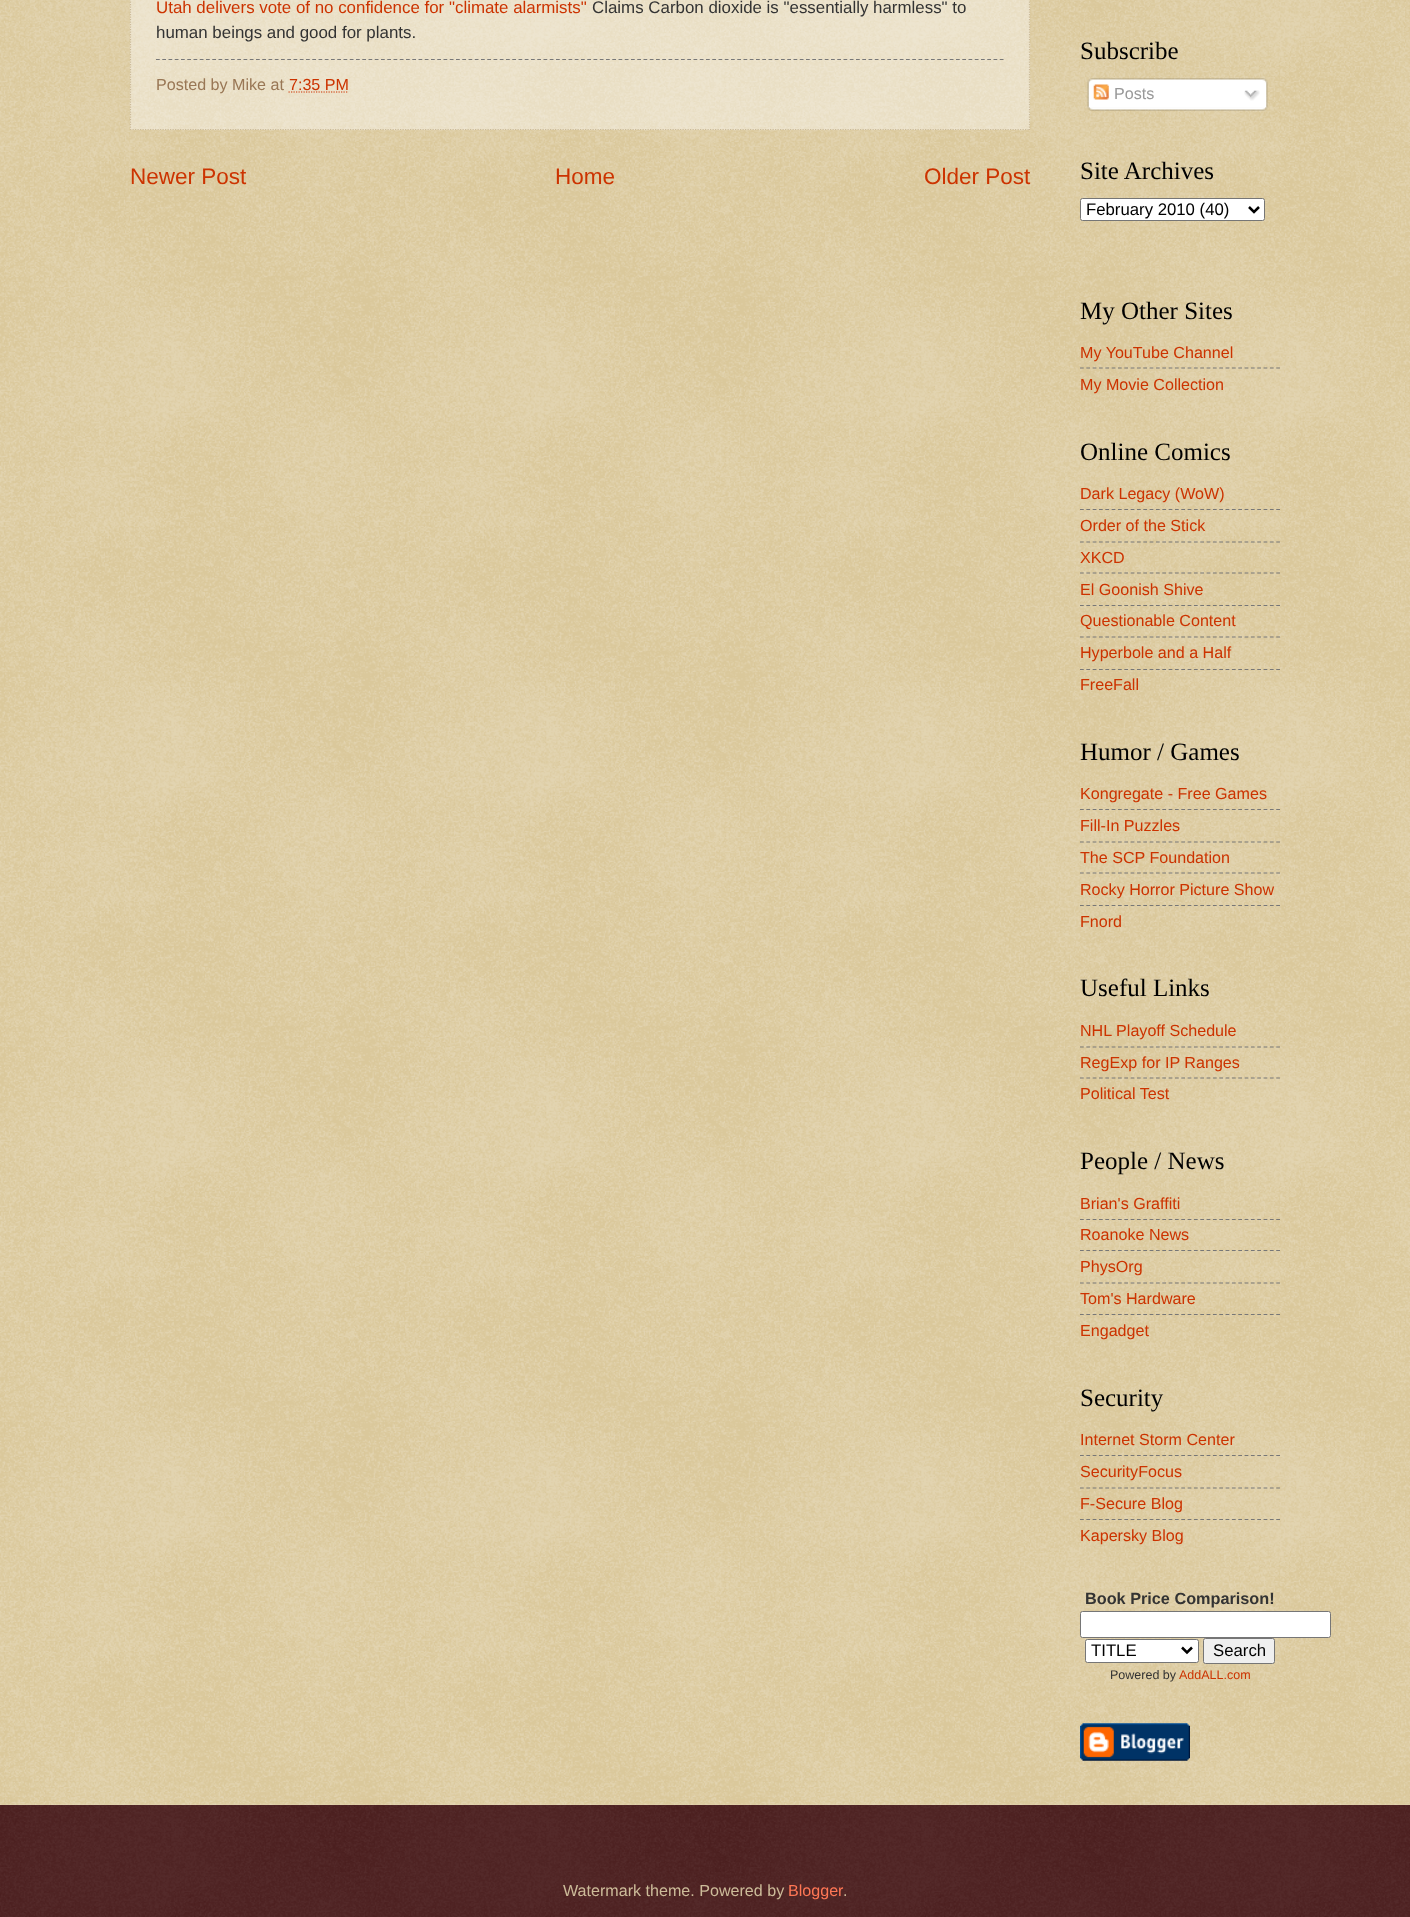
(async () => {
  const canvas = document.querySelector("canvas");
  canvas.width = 1410;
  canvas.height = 1917;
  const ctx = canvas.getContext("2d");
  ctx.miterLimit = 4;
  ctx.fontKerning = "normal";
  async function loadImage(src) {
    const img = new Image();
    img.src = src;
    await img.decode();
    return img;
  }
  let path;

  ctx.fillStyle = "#c0a154";
  ctx.fillRect(0, 0, 1410, 1917);
  ctx.drawImage(await loadImage("img/1.png"), 0, 0, 1410, 1805);
  ctx.fillStyle = "rgba(255, 255, 255, 0.4)";
  ctx.fillRect(130, 0, 900, 130);
  path = new Path2D("M1029.5-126V130");
  ctx.strokeStyle = "#ccbb99";
  ctx.lineWidth = 1.2;
  ctx.setLineDash([1.25, 1.25]);
  ctx.stroke(path);
  path = new Path2D("M130 129.5H1030");
  ctx.stroke(path);
  path = new Path2D("M130.5-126V130");
  ctx.stroke(path);
  path = new Path2D("M156 59.5H1004");
  ctx.strokeStyle = "#777777";
  ctx.setLineDash([3.75, 2.5]);
  ctx.stroke(path);
  path = new Path2D("M288.5 92H348.5");
  ctx.strokeStyle = "#cc3300";
  ctx.setLineDash([1.25, 1.25]);
  ctx.stroke(path);
  ctx.drawImage(await loadImage("img/2.png"), 1087, 78, 181, 29);
  ctx.drawImage(await loadImage("img/3.png"), 1093, 84, 16, 16);
  ctx.drawImage(await loadImage("img/4.png"), 1244, 90, 16, 11);
  ctx.drawImage(await loadImage("img/5.png"), 1087, 107, 181, 4);
  ctx.fillStyle = "#ffffff";
  ctx.beginPath();
  ctx.roundRect(1080.5, 198.5, 184, 22, 2);
  ctx.fill();
  ctx.strokeStyle = "#767676";
  ctx.lineWidth = 1;
  ctx.setLineDash([]);
  ctx.stroke();
  path = new Path2D("M1249 207L1254 212L1259 207");
  ctx.strokeStyle = "#000000";
  ctx.lineWidth = 2.5;
  ctx.stroke(path);
  path = new Path2D("M1080 368H1280");
  ctx.strokeStyle = "#777777";
  ctx.lineWidth = 1.2;
  ctx.setLineDash([3.75, 2.58]);
  ctx.stroke(path);
  path = new Path2D("M1080 509.5H1280");
  ctx.stroke(path);
  path = new Path2D("M1080 542H1280");
  ctx.stroke(path);
  path = new Path2D("M1080 573H1280");
  ctx.stroke(path);
  path = new Path2D("M1080 605.5H1280");
  ctx.stroke(path);
  path = new Path2D("M1080 637H1280");
  ctx.stroke(path);
  path = new Path2D("M1080 669.5H1280");
  ctx.stroke(path);
  path = new Path2D("M1080 809.5H1280");
  ctx.stroke(path);
  path = new Path2D("M1080 842H1280");
  ctx.stroke(path);
  path = new Path2D("M1080 873H1280");
  ctx.stroke(path);
  path = new Path2D("M1080 905.5H1280");
  ctx.stroke(path);
  path = new Path2D("M1080 1047H1280");
  ctx.stroke(path);
  path = new Path2D("M1080 1078H1280");
  ctx.stroke(path);
  path = new Path2D("M1080 1219.5H1280");
  ctx.stroke(path);
  path = new Path2D("M1080 1250.5H1280");
  ctx.stroke(path);
  path = new Path2D("M1080 1283H1280");
  ctx.stroke(path);
  path = new Path2D("M1080 1314.5H1280");
  ctx.stroke(path);
  path = new Path2D("M1080 1455.5H1280");
  ctx.stroke(path);
  path = new Path2D("M1080 1488H1280");
  ctx.stroke(path);
  path = new Path2D("M1080 1519.5H1280");
  ctx.stroke(path);
  ctx.beginPath();
  ctx.roundRect(1080.5, 1611.5, 250, 26, 2);
  ctx.fill();
  ctx.strokeStyle = "#767676";
  ctx.lineWidth = 1;
  ctx.setLineDash([]);
  ctx.stroke();
  ctx.beginPath();
  ctx.roundRect(1085.5, 1639.5, 113, 23, 2);
  ctx.fill();
  ctx.stroke();
  path = new Path2D("M1182 1647.5L1187 1652.5L1192 1647.5");
  ctx.strokeStyle = "#000000";
  ctx.lineWidth = 2.5;
  ctx.stroke(path);
  ctx.fillStyle = "#efefef";
  ctx.beginPath();
  ctx.roundRect(1203.5, 1638.5, 71, 25, 2);
  ctx.fill();
  ctx.strokeStyle = "#767676";
  ctx.lineWidth = 1;
  ctx.stroke();
  ctx.drawImage(await loadImage("img/6.png"), 1080, 1723, 110, 38);
  ctx.fillStyle = "#330000";
  ctx.fillRect(0, 1805, 1410, 112);
  ctx.drawImage(await loadImage("img/7.png"), 0, 1804, 1410, 113);
  ctx.font = "16.9px Liberation Sans";
  ctx.fillStyle = "#cc3300";
  ctx.fillText("Utah delivers vote of no confidence for \"climate alarmists\"", 156, 13);
  ctx.fillStyle = "#333333";
  ctx.fillText("Claims Carbon dioxide is \"essentially harmless\" to", 592, 13);
  ctx.fillText("human beings and good for plants.", 156, 38);
  ctx.font = "16.1px Liberation Sans";
  ctx.fillStyle = "#997755";
  ctx.fillText("Posted by Mike at", 156, 90);
  ctx.fillStyle = "#cc3300";
  ctx.fillText("7:35 PM", 289, 90);
  ctx.font = "22.5px Liberation Sans";
  for (const [text, x, y] of [
    ["Newer Post", 130, 184],
    ["Home", 555, 184],
    ["Older Post", 924, 184],
  ]) {
    ctx.fillText(text, x, y);
  }
  ctx.font = "25px Liberation Serif";
  ctx.fillStyle = "#000000";
  ctx.fillText("Subscribe", 1080, 59);
  ctx.font = "16.1px Liberation Sans";
  ctx.fillStyle = "#999999";
  ctx.fillText("Posts", 1114, 99);
  ctx.font = "25px Liberation Serif";
  ctx.fillStyle = "#000000";
  ctx.fillText("Site Archives", 1080, 179);
  ctx.font = "16.75px Liberation Sans";
  ctx.fillText("February 2010 (40)", 1086, 215);
  ctx.font = "25px Liberation Serif";
  ctx.fillText("My Other Sites", 1080, 319);
  ctx.font = "16.1px Liberation Sans";
  ctx.fillStyle = "#cc3300";
  ctx.fillText("My YouTube Channel", 1080, 358);
  ctx.fillText("My Movie Collection", 1080, 390);
  ctx.font = "25px Liberation Serif";
  ctx.fillStyle = "#000000";
  ctx.fillText("Online Comics", 1080, 460);
  ctx.font = "16.1px Liberation Sans";
  ctx.fillStyle = "#cc3300";
  for (const [text, x, y] of [
    ["Dark Legacy (WoW)", 1080, 499],
    ["Order of the Stick", 1080, 531],
    ["XKCD", 1080, 563],
    ["El Goonish Shive", 1080, 595],
    ["Questionable Content", 1080, 626],
    ["Hyperbole and a Half", 1080, 658],
    ["FreeFall", 1080, 690],
  ]) {
    ctx.fillText(text, x, y);
  }
  ctx.font = "25px Liberation Serif";
  ctx.fillStyle = "#000000";
  ctx.fillText("Humor / Games", 1080, 760);
  ctx.font = "16.1px Liberation Sans";
  ctx.fillStyle = "#cc3300";
  for (const [text, x, y] of [
    ["Kongregate - Free Games", 1080, 799],
    ["Fill-In Puzzles", 1080, 831],
    ["The SCP Foundation", 1080, 863],
    ["Rocky Horror Picture Show", 1080, 895],
    ["Fnord", 1080, 927],
  ]) {
    ctx.fillText(text, x, y);
  }
  ctx.font = "25px Liberation Serif";
  ctx.fillStyle = "#000000";
  ctx.fillText("Useful Links", 1080, 996);
  ctx.font = "16.1px Liberation Sans";
  ctx.fillStyle = "#cc3300";
  for (const [text, x, y] of [
    ["NHL Playoff Schedule", 1080, 1036],
    ["RegExp for IP Ranges", 1080, 1068],
    ["Political Test", 1080, 1099],
  ]) {
    ctx.fillText(text, x, y);
  }
  ctx.font = "25px Liberation Serif";
  ctx.fillStyle = "#000000";
  ctx.fillText("People / News", 1080, 1169);
  ctx.font = "16.1px Liberation Sans";
  ctx.fillStyle = "#cc3300";
  for (const [text, x, y] of [
    ["Brian's Graffiti", 1080, 1209],
    ["Roanoke News", 1080, 1240],
    ["PhysOrg", 1080, 1272],
    ["Tom's Hardware", 1080, 1304],
    ["Engadget", 1080, 1336],
  ]) {
    ctx.fillText(text, x, y);
  }
  ctx.font = "25px Liberation Serif";
  ctx.fillStyle = "#000000";
  ctx.fillText("Security", 1080, 1406);
  ctx.font = "16.1px Liberation Sans";
  ctx.fillStyle = "#cc3300";
  for (const [text, x, y] of [
    ["Internet Storm Center", 1080, 1445],
    ["SecurityFocus", 1080, 1477],
    ["F-Secure Blog", 1080, 1509],
    ["Kapersky Blog", 1080, 1541],
  ]) {
    ctx.fillText(text, x, y);
  }
  ctx.font = "bold 16.25px Liberation Sans";
  ctx.fillStyle = "#333333";
  ctx.fillText("Book Price Comparison!", 1085, 1604);
  ctx.font = "16.75px Liberation Sans";
  ctx.fillStyle = "#000000";
  ctx.fillText("TITLE", 1091, 1656);
  ctx.fillText("Search", 1213, 1656);
  ctx.font = "12.5px Liberation Sans";
  ctx.fillStyle = "#333333";
  ctx.fillText("Powered by", 1110, 1679);
  ctx.fillStyle = "#cc3300";
  ctx.fillText("AddALL.com", 1179, 1679);
  ctx.font = "16.1px Liberation Sans";
  ctx.fillStyle = "#ccbb99";
  ctx.fillText("Watermark theme. Powered by", 563, 1896);
  ctx.fillStyle = "#ff7755";
  ctx.fillText("Blogger", 788, 1896);
  ctx.fillStyle = "#ccbb99";
  ctx.fillText(".", 843, 1896);
})();
